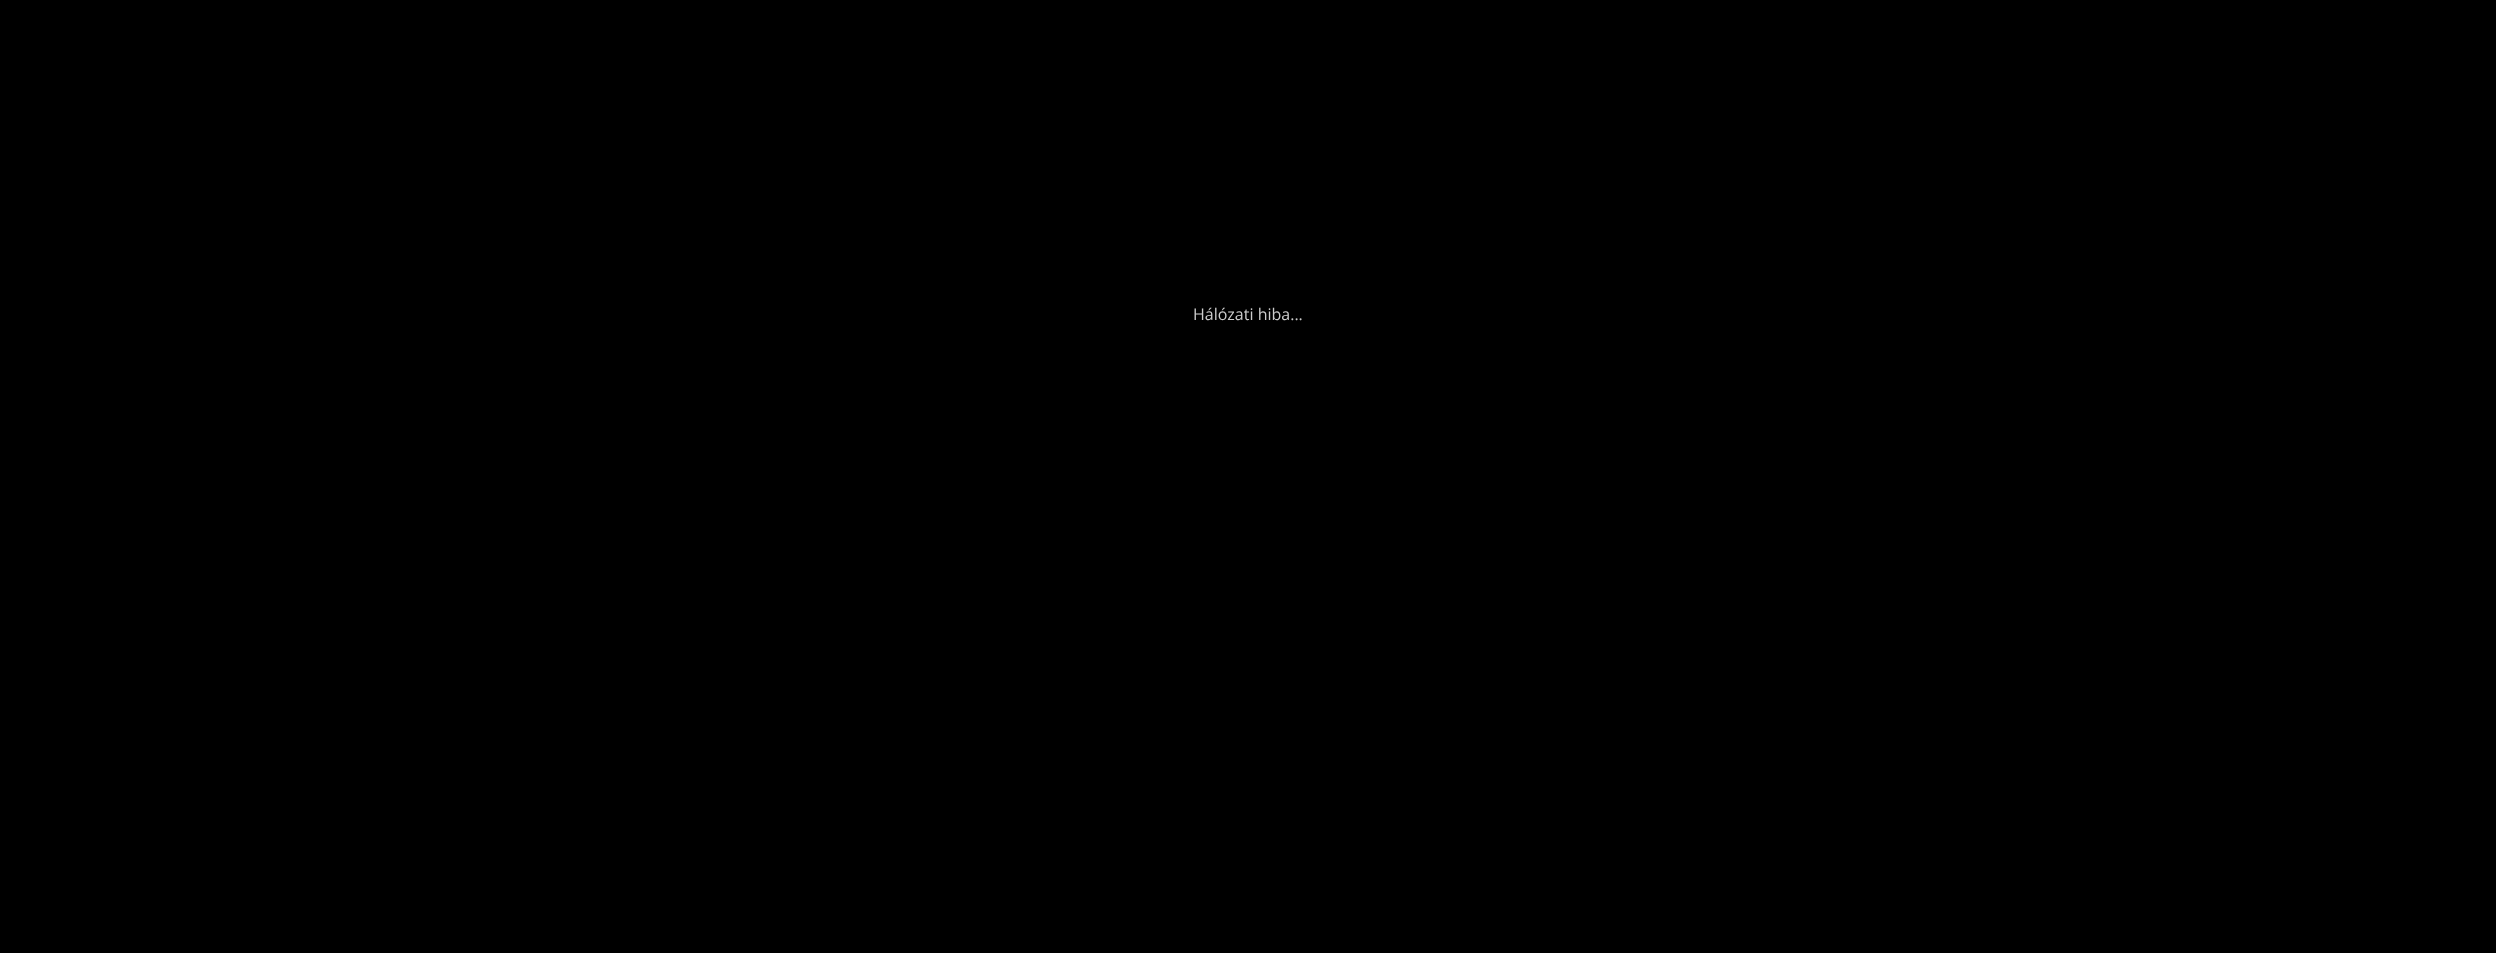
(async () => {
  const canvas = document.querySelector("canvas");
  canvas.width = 2496;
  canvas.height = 953;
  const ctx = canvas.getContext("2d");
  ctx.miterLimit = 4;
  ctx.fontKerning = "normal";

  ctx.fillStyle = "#000000";
  ctx.fillRect(0, 0, 2496, 953);
  ctx.font = "16px Open Sans";
  ctx.fillStyle = "#cccccc";
  ctx.fillText("Hálózati hiba...", 1193, 320);
})();
